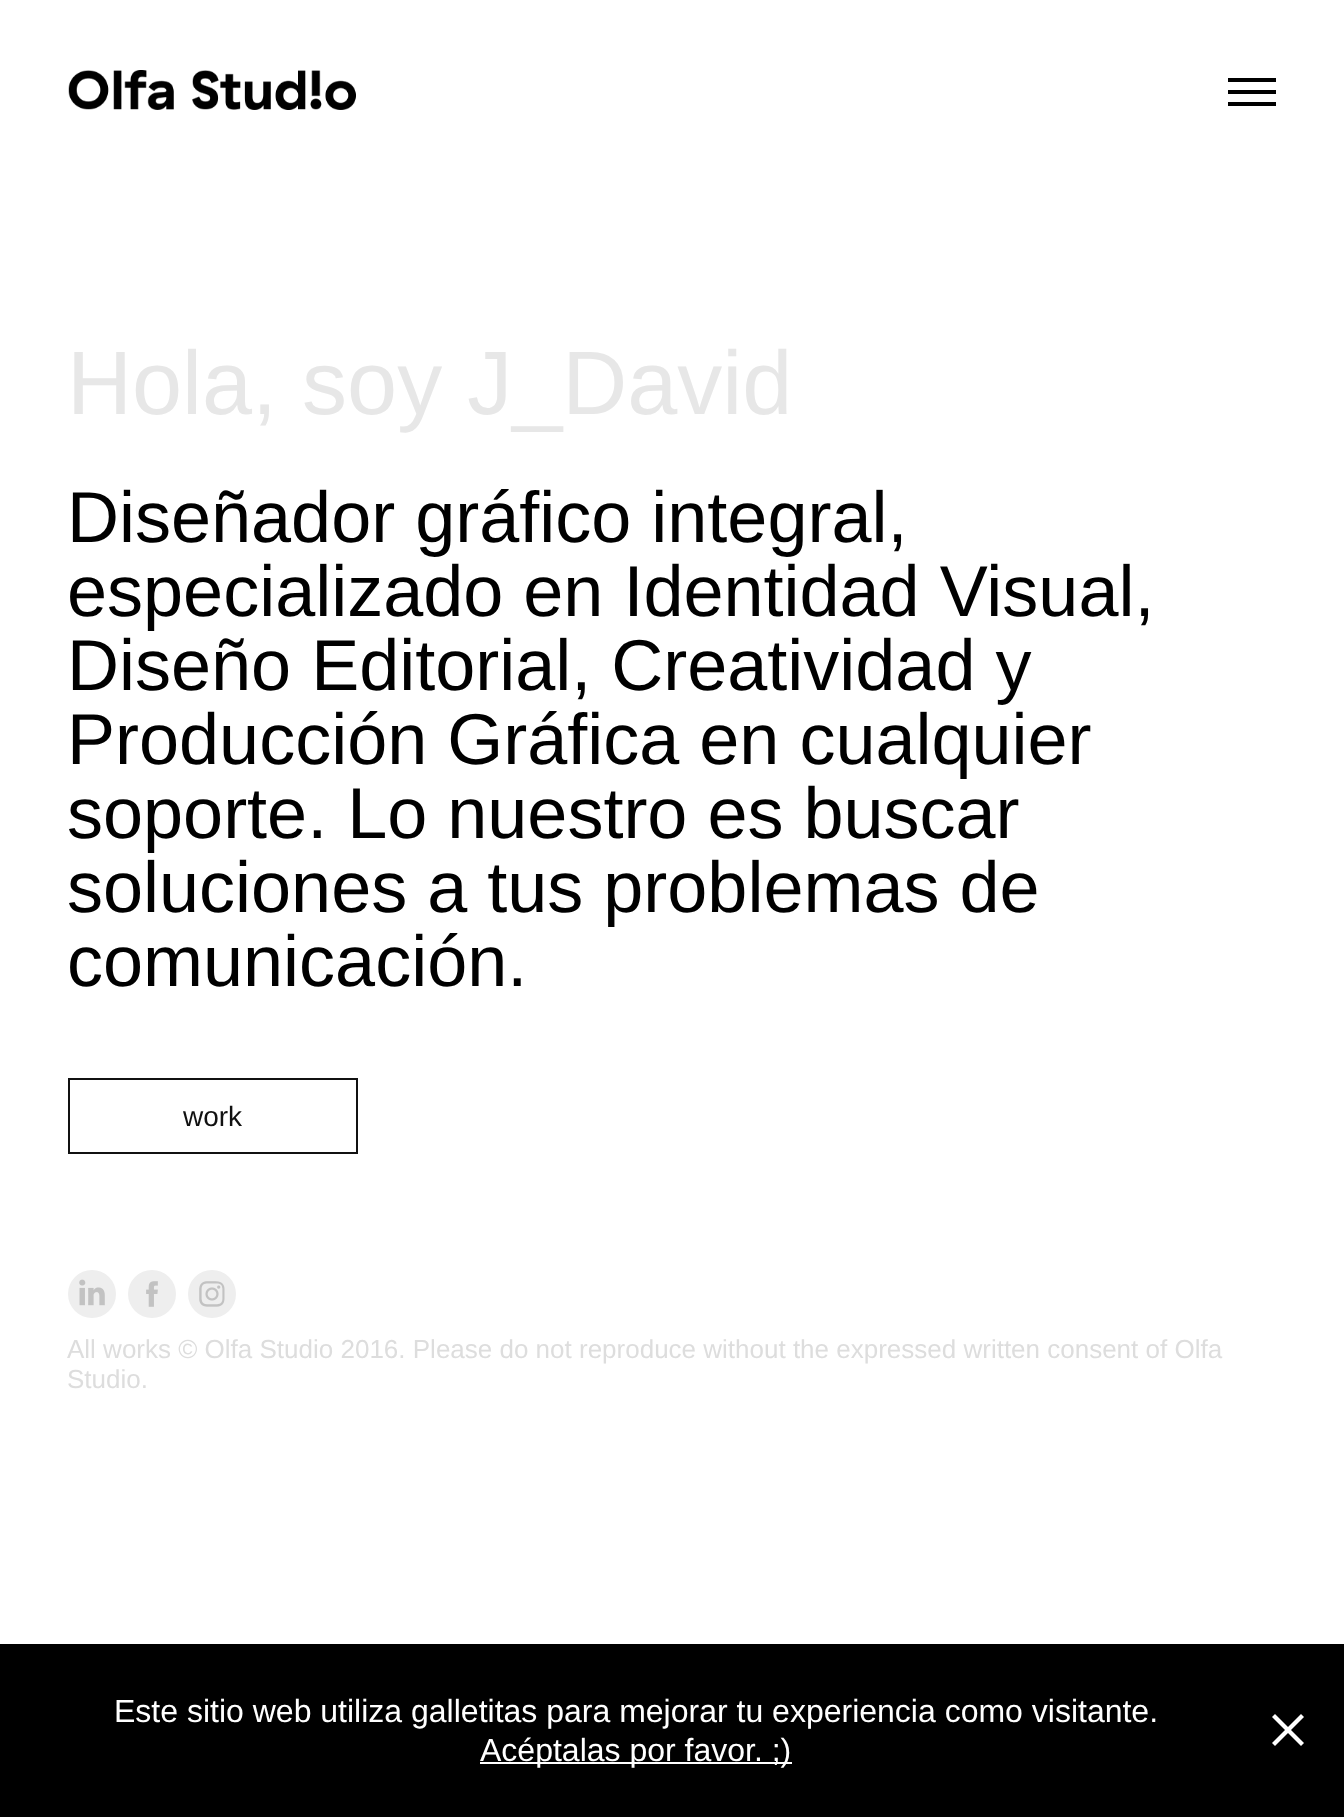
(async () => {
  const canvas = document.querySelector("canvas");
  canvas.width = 1344;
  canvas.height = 1817;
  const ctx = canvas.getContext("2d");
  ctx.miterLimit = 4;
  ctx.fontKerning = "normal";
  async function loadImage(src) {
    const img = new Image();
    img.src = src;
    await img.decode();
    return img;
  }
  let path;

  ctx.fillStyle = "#ffffff";
  ctx.fillRect(0, 0, 1344, 1817);
  ctx.drawImage(await loadImage("img/1.png"), 68, 70, 288, 40);
  for (const [x, y, w, h, color] of [
    [1228, 78, 48, 4, "#000000"],
    [1228, 90, 48, 4, "#000000"],
    [1228, 102, 48, 4, "#000000"],
  ]) {
    ctx.fillStyle = color;
    ctx.fillRect(x, y, w, h);
  }
  ctx.strokeStyle = "#111111";
  ctx.lineWidth = 2;
  ctx.strokeRect(69, 1079, 288, 74);
  ctx.fillStyle = "#eeeeee";
  ctx.beginPath();
  ctx.arc(92, 1294, 24, 0, Math.PI * 2);
  ctx.fill();
  ctx.drawImage(await loadImage("img/2.png"), 79, 1279, 26, 27);
  ctx.beginPath();
  ctx.arc(152, 1294, 24, 0, Math.PI * 2);
  ctx.fill();
  ctx.drawImage(await loadImage("img/3.png"), 146, 1281, 12, 26);
  ctx.beginPath();
  ctx.arc(212, 1294, 24, 0, Math.PI * 2);
  ctx.fill();
  ctx.drawImage(await loadImage("img/4.png"), 199, 1281, 26, 26);
  ctx.fillStyle = "#000000";
  ctx.fillRect(0, 1644, 1344, 173);
  ctx.fillStyle = "#ffffff";
  ctx.fillRect(480, 1762, 312, 2);
  path = new Path2D("M1272 1717L1275 1714L1304 1743L1301 1746Z");
  ctx.fill(path);
  path = new Path2D("M1275 1746L1272 1743L1301 1714L1304 1717Z");
  ctx.fill(path);
  ctx.font = "90px Liberation Sans";
  ctx.fillStyle = "#e7e7e7";
  ctx.fillText("Hola, soy J_David", 67, 414);
  ctx.font = "72px Liberation Sans";
  ctx.fillStyle = "#000000";
  for (const [text, x, y] of [
    ["Diseñador gráfico integral,", 67, 542],
    ["especializado en Identidad Visual,", 67, 616],
    ["Diseño Editorial, Creatividad y", 67, 690],
    ["Producción Gráfica en cualquier", 67, 764],
    ["soporte. Lo nuestro es buscar", 67, 838],
    ["soluciones a tus problemas de", 67, 912],
    ["comunicación.", 67, 986],
  ]) {
    ctx.fillText(text, x, y);
  }
  ctx.font = "28px Liberation Sans";
  ctx.fillStyle = "#111111";
  ctx.fillText("work", 183, 1126);
  ctx.font = "26px Liberation Sans";
  ctx.fillStyle = "#dddddd";
  ctx.fillText("All works © Olfa Studio 2016. Please do not reproduce without the expressed written consent of Olfa", 67, 1358);
  ctx.fillText("Studio.", 67, 1388);
  ctx.font = "32px Liberation Sans";
  ctx.fillStyle = "#ffffff";
  ctx.fillText("Este sitio web utiliza galletitas para mejorar tu experiencia como visitante.", 114, 1722);
  ctx.fillText("Acéptalas por favor. ;)", 480, 1761);
})();
